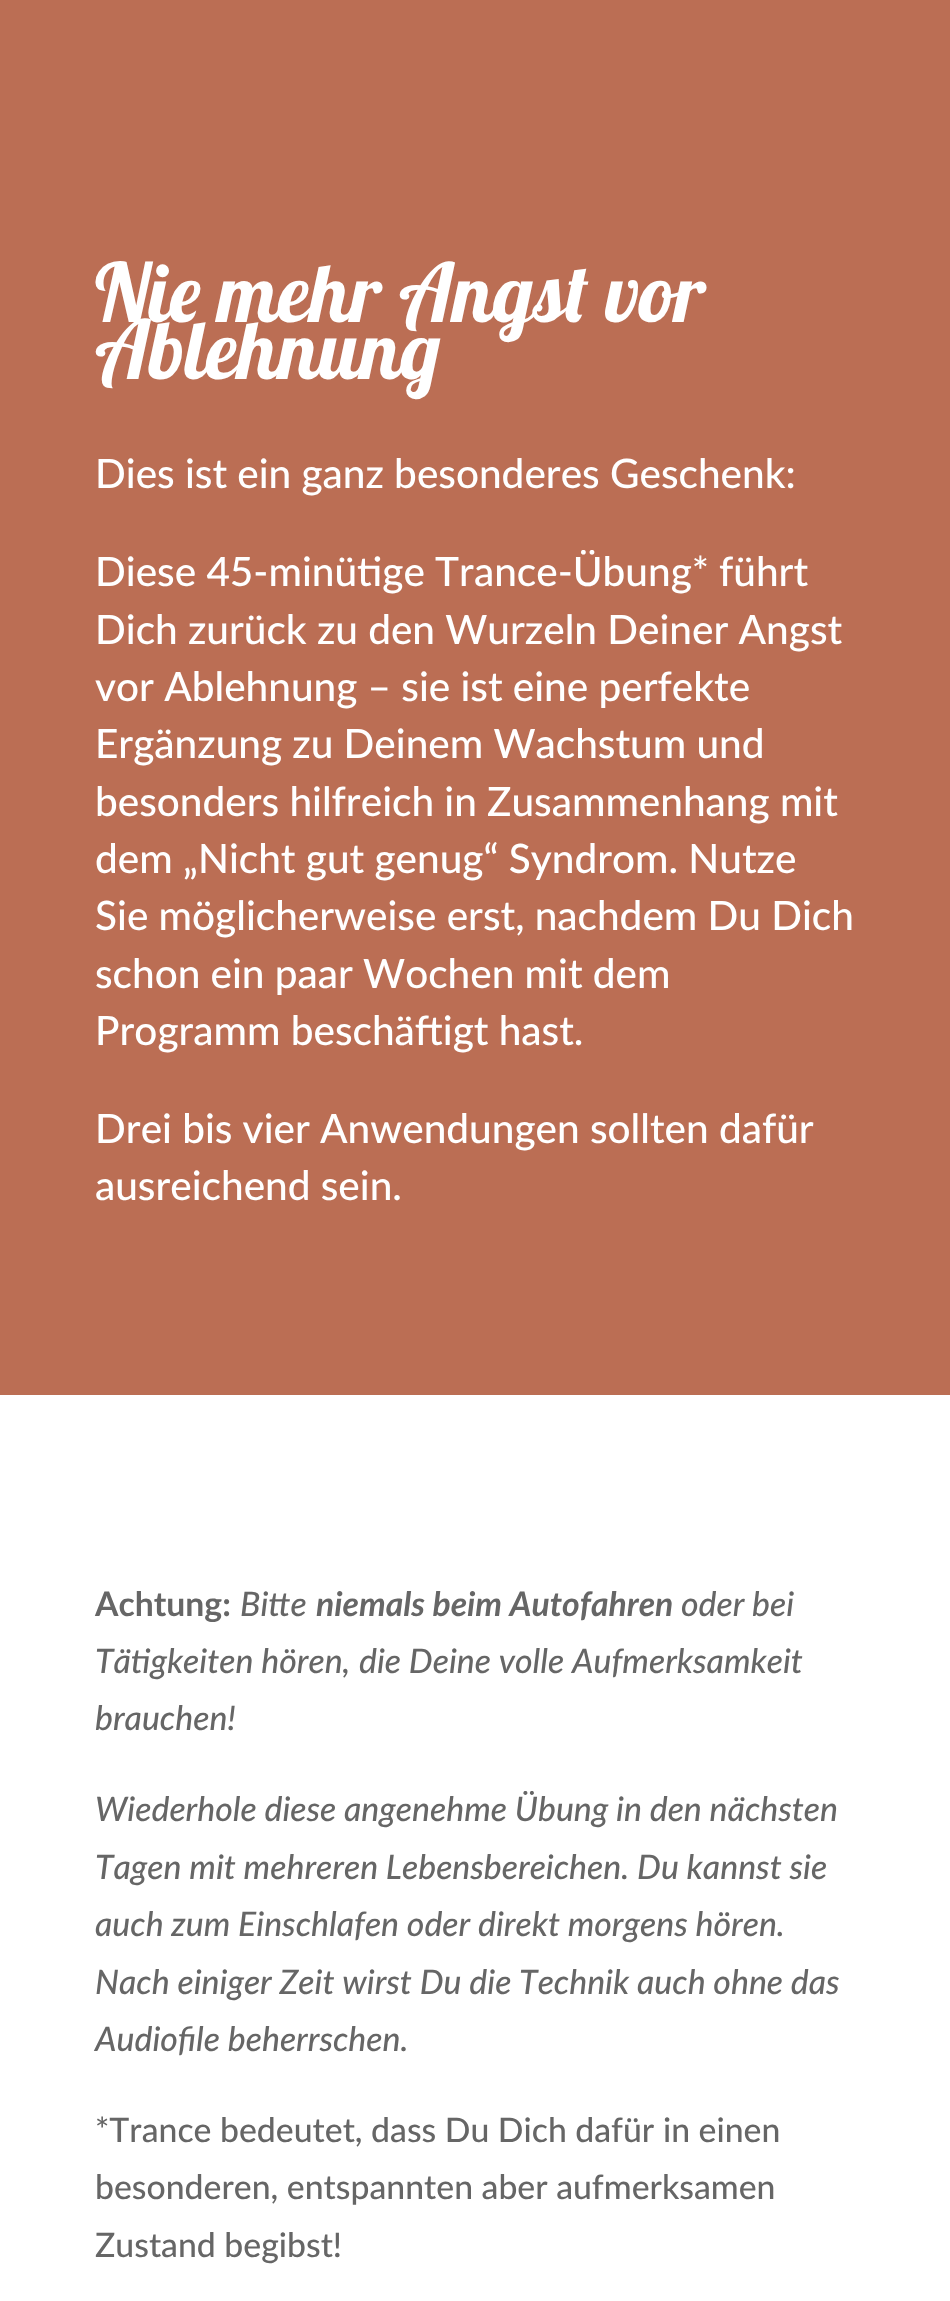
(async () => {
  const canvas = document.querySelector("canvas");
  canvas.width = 950;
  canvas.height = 2301;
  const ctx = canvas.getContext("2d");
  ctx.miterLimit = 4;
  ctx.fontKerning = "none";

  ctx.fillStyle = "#bb6e54";
  ctx.fillRect(0, 0, 950, 2301);
  ctx.fillStyle = "#ffffff";
  ctx.fillRect(0, 1395, 950, 906);
  ctx.font = "81px Lobster";
  ctx.fillText("Nie mehr Angst vor", 95, 322);
  ctx.fillText("Ablehnung", 95, 379);
  ctx.font = "500 40.5px Lato";
  for (const [text, x, y] of [
    ["Dies ist ein ganz besonderes Geschenk:", 95, 488],
    ["Diese 45-minütige Trance-Übung*", 95, 586],
    ["führt", 719, 586],
    ["Dich zurück zu den Wurzeln Deiner Angst", 95, 644],
    ["vor Ablehnung – sie ist eine perfekte", 95, 701],
    ["Ergänzung zu Deinem Wachstum und", 95, 758],
    ["besonders hilfreich in Zusammenhang mit", 95, 816],
    ["dem „Nicht gut genug“ Syndrom. Nutze", 95, 873],
    ["Sie möglicherweise erst, nachdem Du Dich", 95, 930],
    ["schon ein paar Wochen mit dem", 95, 988],
    ["Programm beschäftigt hast.", 95, 1045],
    ["Drei bis vier Anwendungen sollten dafür", 95, 1143],
    ["ausreichend sein.", 95, 1200],
  ]) {
    ctx.fillText(text, x, y);
  }
  ctx.font = "bold 33.75px Lato";
  ctx.fillStyle = "#666666";
  ctx.fillText("Achtung:", 95, 1616);
  ctx.font = "italic 500 33.75px Lato";
  ctx.fillText("Bitte", 240, 1616);
  ctx.font = "italic bold 33.75px Lato";
  ctx.fillText("niemals beim Autofahren", 316, 1616);
  ctx.font = "italic 500 33.75px Lato";
  for (const [text, x, y] of [
    ["oder bei", 681, 1616],
    ["Tätigkeiten hören,", 95, 1673],
    ["die Deine volle Aufmerksamkeit", 359, 1673],
    ["brauchen!", 95, 1730],
    ["Wiederhole diese angenehme Übung in den nächsten", 95, 1821],
    ["Tagen mit mehreren Lebensbereichen.", 95, 1879],
    ["Du kannst sie", 637, 1879],
    ["auch zum Einschlafen oder direkt morgens hören.", 95, 1936],
    ["Nach einiger Zeit wirst Du die Technik", 95, 1994],
    ["auch ohne das", 637, 1994],
    ["Audiofile beherrschen.", 95, 2051],
  ]) {
    ctx.fillText(text, x, y);
  }
  ctx.font = "500 33.75px Lato";
  for (const [text, x, y] of [
    ["*Trance bedeutet, dass Du Dich dafür", 95, 2142],
    ["in einen", 663, 2142],
    ["besonderen, entspannten aber aufmerksamen", 95, 2199],
    ["Zustand begibst!", 95, 2257],
  ]) {
    ctx.fillText(text, x, y);
  }
})();
